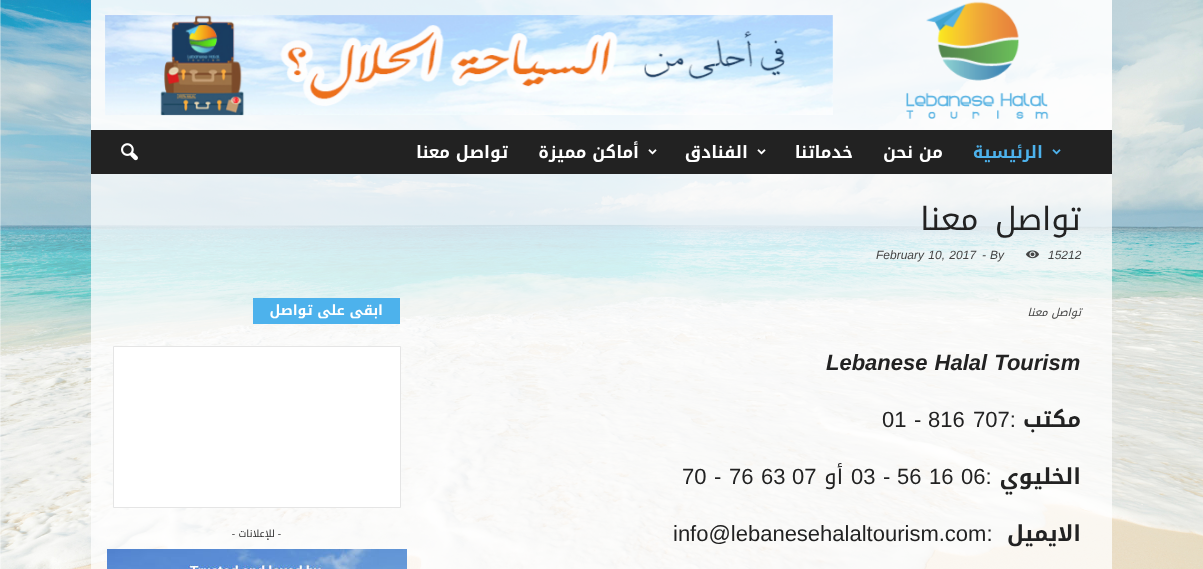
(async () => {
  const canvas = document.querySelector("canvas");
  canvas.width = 1203;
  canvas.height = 569;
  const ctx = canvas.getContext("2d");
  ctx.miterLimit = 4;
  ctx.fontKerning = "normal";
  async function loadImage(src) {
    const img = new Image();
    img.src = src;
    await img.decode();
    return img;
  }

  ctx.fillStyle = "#ffffff";
  ctx.fillRect(0, 0, 1203, 569);
  ctx.drawImage(await loadImage("img/1.png"), 0, 0, 1203, 569);
  ctx.fillStyle = "rgba(255, 255, 255, 0.9)";
  ctx.fillRect(91, 0, 1021, 130);
  ctx.drawImage(await loadImage("img/2.png"), 906, 1, 143, 118);
  ctx.drawImage(await loadImage("img/3.png"), 105, 15, 728, 101);
  ctx.fillStyle = "#222222";
  ctx.fillRect(91, 130, 1021, 44);
  ctx.drawImage(await loadImage("img/4.png"), 1052, 149, 9, 6);
  ctx.drawImage(await loadImage("img/5.png"), 757, 149, 9, 6);
  ctx.drawImage(await loadImage("img/5.png"), 648, 149, 9, 6);
  ctx.drawImage(await loadImage("img/6.png"), 121, 143, 17, 18);
  ctx.fillStyle = "rgba(255, 255, 255, 0.75)";
  ctx.fillRect(91, 174, 1021, 395);
  ctx.drawImage(await loadImage("img/7.png"), 1026, 250, 13, 9);
  ctx.fillStyle = "#4db2ec";
  ctx.fillRect(253, 298, 147, 26);
  ctx.fillStyle = "#ffffff";
  ctx.beginPath();
  ctx.rect(113.5, 346.5, 287, 161);
  ctx.fill();
  ctx.strokeStyle = "#e5e5e5";
  ctx.stroke();
  ctx.drawImage(await loadImage("img/8.png"), 107, 549, 300, 20);
  ctx.direction = "rtl";
  ctx.font = "bold 17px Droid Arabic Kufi";
  ctx.fillStyle = "#4db2ec";
  ctx.fillText("الرئيسية", 1043, 158);
  ctx.fillStyle = "#ffffff";
  for (const [text, x, y] of [
    ["من نحن", 943, 158],
    ["خدماتنا", 853, 158],
    ["الفنادق", 748, 158],
    ["أماكن مميزة", 639, 158],
    ["تواصل معنا", 508, 158],
  ]) {
    ctx.fillText(text, x, y);
  }
  ctx.letterSpacing = "-0.6px";
  ctx.wordSpacing = "6px";
  ctx.font = "32px Droid Arabic Kufi";
  ctx.fillStyle = "#222222";
  ctx.fillText("تواصل معنا", 1081, 230);
  ctx.letterSpacing = "0px";
  ctx.wordSpacing = "0px";
  ctx.direction = "ltr";
  ctx.font = "italic 12px Liberation Sans";
  ctx.fillStyle = "#444444";
  for (const [text, x, y] of [
    ["15212", 1048, 259],
    ["By", 990, 259],
    ["-", 982, 259],
  ]) {
    ctx.fillText(text, x, y);
  }
  ctx.wordSpacing = "1px";
  ctx.fillText("February 10, 2017", 876, 259);
  ctx.wordSpacing = "0px";
  ctx.direction = "rtl";
  ctx.font = "italic 11px Droid Arabic Kufi";
  ctx.fillText("تواصل معنا", 1081, 316);
  ctx.wordSpacing = "1px";
  ctx.direction = "ltr";
  ctx.font = "italic bold 22px Liberation Sans";
  ctx.fillStyle = "#222222";
  ctx.fillText("Lebanese Halal Tourism", 826, 370);
  ctx.wordSpacing = "0px";
  ctx.direction = "rtl";
  ctx.font = "bold 22px Droid Arabic Kufi";
  ctx.fillText("مكتب", 1081, 427);
  ctx.direction = "ltr";
  ctx.font = "22px Liberation Sans";
  for (const [text, x, y] of [
    ["707:", 973, 427],
    ["816", 928, 427],
    ["-", 914, 427],
    ["01", 882, 427],
  ]) {
    ctx.fillText(text, x, y);
  }
  ctx.direction = "rtl";
  ctx.font = "bold 22px Droid Arabic Kufi";
  ctx.fillText("الخليوي", 1081, 484);
  ctx.direction = "ltr";
  ctx.font = "22px Liberation Sans";
  for (const [text, x, y] of [
    ["06:", 961, 484],
    ["16", 929, 484],
    ["56", 897, 484],
    ["-", 883, 484],
    ["03", 851, 484],
  ]) {
    ctx.fillText(text, x, y);
  }
  ctx.direction = "rtl";
  ctx.font = "22px Droid Arabic Kufi";
  ctx.fillText("أو", 843, 484);
  ctx.direction = "ltr";
  ctx.font = "22px Liberation Sans";
  for (const [text, x, y] of [
    ["07", 792, 484],
    ["63", 761, 484],
    ["76", 729, 484],
    ["-", 714, 484],
    ["70", 682, 484],
  ]) {
    ctx.fillText(text, x, y);
  }
  ctx.direction = "rtl";
  ctx.font = "bold 22px Droid Arabic Kufi";
  ctx.fillText("الايميل", 1081, 541);
  ctx.direction = "ltr";
  ctx.font = "22px Liberation Sans";
  ctx.fillText("info@lebanesehalaltourism.com:", 673, 541);
  ctx.direction = "rtl";
  ctx.font = "bold 14px Droid Arabic Kufi";
  ctx.fillStyle = "#ffffff";
  ctx.fillText("ابقى على تواصل", 383, 315);
  ctx.font = "10px Liberation Serif";
  ctx.fillStyle = "#333333";
  ctx.fillText("-", 281, 537);
  ctx.font = "10px Droid Arabic Kufi";
  ctx.fillText("للإعلانات", 275, 537);
  ctx.font = "10px Liberation Serif";
  ctx.fillText("-", 235, 537);
})();
